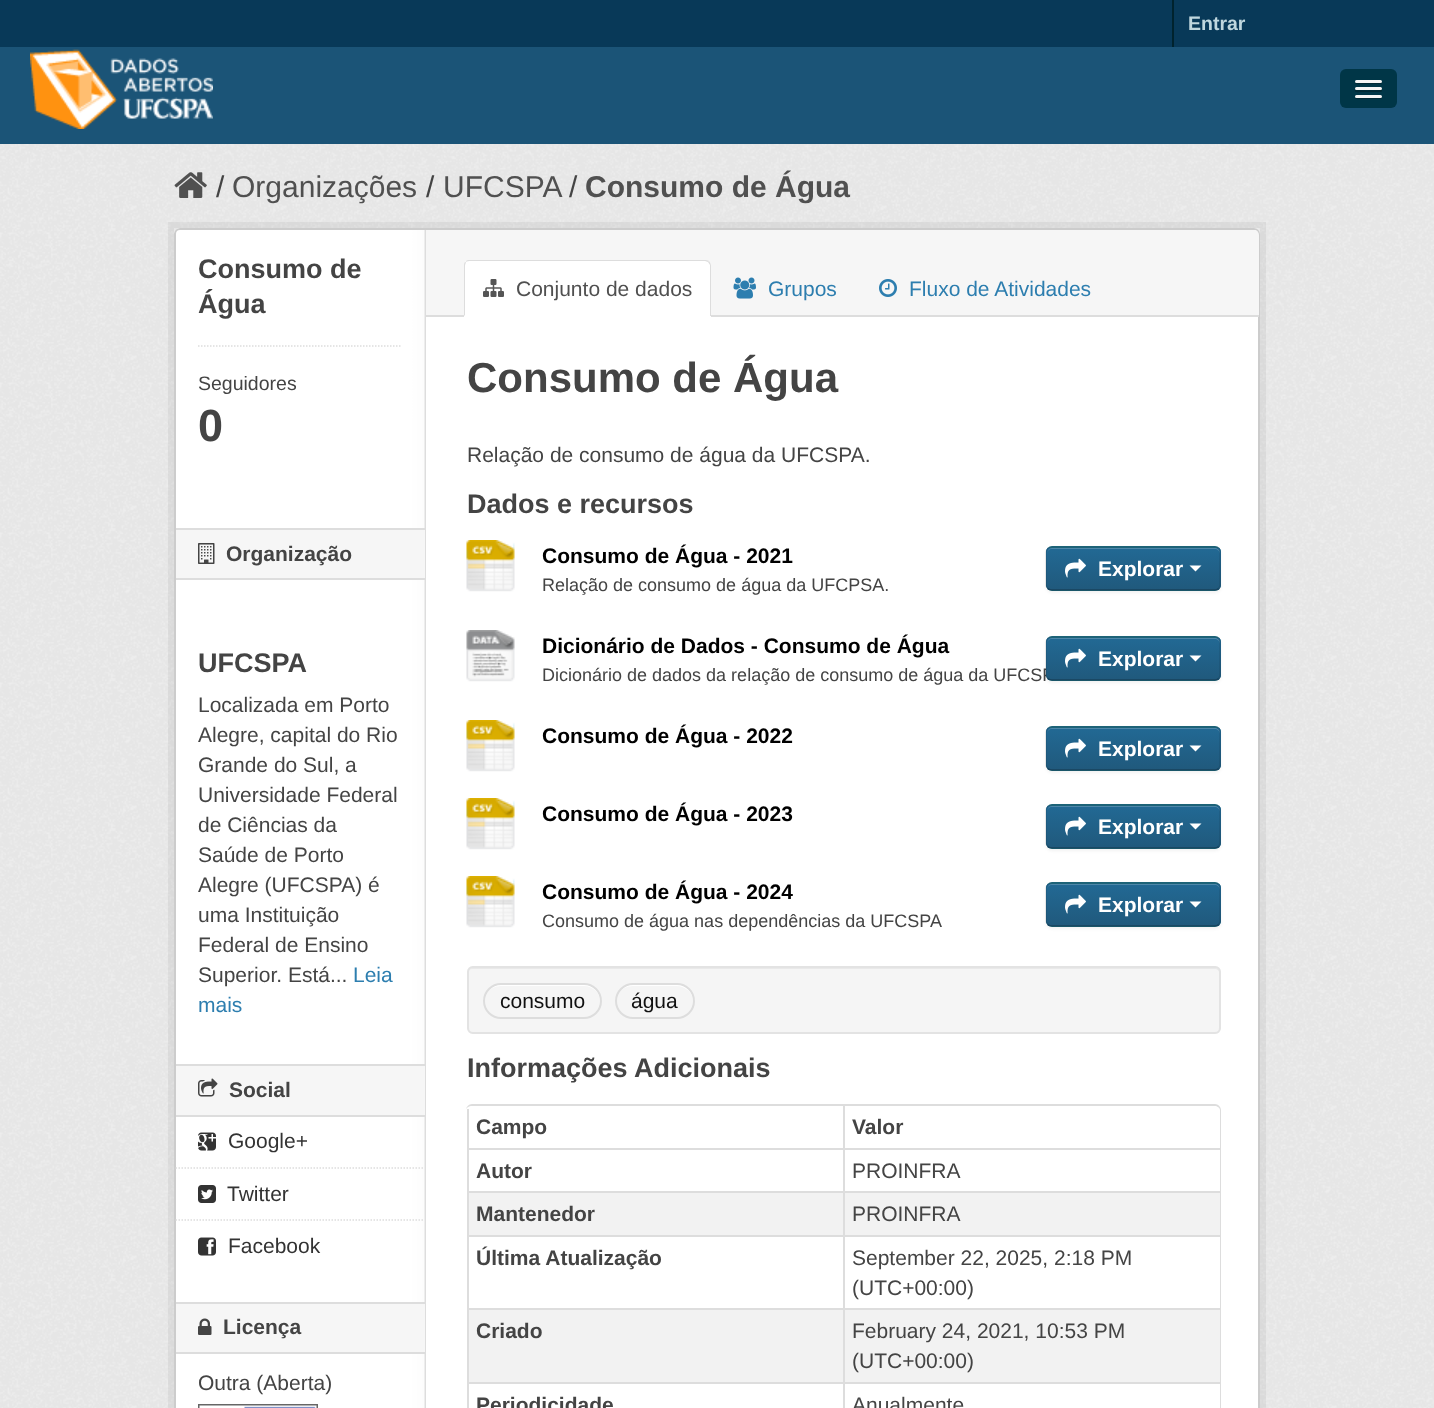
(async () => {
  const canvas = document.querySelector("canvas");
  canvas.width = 1434;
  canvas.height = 1408;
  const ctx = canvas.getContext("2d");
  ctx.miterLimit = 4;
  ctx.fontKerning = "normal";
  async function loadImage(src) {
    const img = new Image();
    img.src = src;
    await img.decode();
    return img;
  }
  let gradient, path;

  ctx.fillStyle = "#083958";
  ctx.fillRect(0, 0, 1434, 1408);
  ctx.fillStyle = "#00232e";
  ctx.fillRect(1172, 0, 2, 47);
  ctx.fillStyle = "#1b5477";
  ctx.fillRect(0, 47, 1434, 97);
  ctx.drawImage(await loadImage("img/1.png"), 30, 49, 183, 80);
  ctx.fillStyle = "#003647";
  ctx.beginPath();
  ctx.roundRect(1340, 69, 57, 39, 6);
  ctx.fill();
  ctx.fillStyle = "#002935";
  path = new Path2D("M1355 82C1354.5 85 1360 84 1360.5 84H1380.5C1382 84 1382.5 82 1381.5 81.5L1380.5 82.5C1379 83 1355.5 82.5 1355 82Z");
  ctx.fill(path);
  ctx.fillStyle = "#f5f5f5";
  ctx.beginPath();
  ctx.roundRect(1355, 80, 27, 3, 1.5);
  ctx.fill();
  ctx.fillStyle = "#002935";
  path = new Path2D("M1355 90C1353.5 93 1360.5 92 1360.5 92H1381C1382 91.5 1382.5 90 1381.5 89L1380 90C1378 90.5 1356 90.5 1355 90Z");
  ctx.fill(path);
  ctx.fillStyle = "#f5f5f5";
  ctx.beginPath();
  ctx.roundRect(1355, 87, 27, 3, 1.5);
  ctx.fill();
  ctx.fillStyle = "#002935";
  path = new Path2D("M1355 97C1354.5 100 1360 99 1360.5 99H1380.5C1382 99 1382.5 97 1381.5 96.5L1380.5 97.5C1379 98 1355.5 97.5 1355 97Z");
  ctx.fill(path);
  ctx.fillStyle = "#f5f5f5";
  ctx.beginPath();
  ctx.roundRect(1355, 95, 27, 3, 1.5);
  ctx.fill();
  ctx.fillStyle = "#eeeeee";
  ctx.fillRect(0, 144, 1434, 1264);
  ctx.drawImage(await loadImage("img/2.png"), 0, 144, 1434, 1264);
  ctx.drawImage(await loadImage("img/3.png"), 174, 172, 33, 26);
  ctx.strokeStyle = "rgba(0, 0, 0, 0.05)";
  ctx.lineWidth = 6;
  ctx.strokeRect(171, 225, 1092, 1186);
  ctx.fillStyle = "#ffffff";
  ctx.beginPath();
  ctx.roundRect(174, 228, 1086, 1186, 6);
  ctx.fill();
  ctx.drawImage(await loadImage("img/4.png"), 174, 228, 252, 1180);
  ctx.beginPath();
  ctx.roundRect(175, 229, 1084, 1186, 5);
  ctx.strokeStyle = "#cccccc";
  ctx.lineWidth = 2;
  ctx.stroke();
  path = new Path2D("M198 346H402");
  ctx.strokeStyle = "#dddddd";
  ctx.lineWidth = 1.5;
  ctx.setLineDash([1.5, 1.5]);
  ctx.stroke(path);
  for (const [x, y, w, h, color] of [
    [176, 530, 249, 48, "#f6f6f6"],
    [176, 528, 249, 2, "#dddddd"],
    [176, 578, 249, 2, "#dddddd"],
  ]) {
    ctx.fillStyle = color;
    ctx.fillRect(x, y, w, h);
  }
  ctx.drawImage(await loadImage("img/5.png"), 198, 543, 17, 21);
  for (const [x, y, w, h, color] of [
    [176, 1066, 249, 49, "#f6f6f6"],
    [176, 1064, 249, 2, "#dddddd"],
    [176, 1115, 249, 2, "#dddddd"],
  ]) {
    ctx.fillStyle = color;
    ctx.fillRect(x, y, w, h);
  }
  ctx.drawImage(await loadImage("img/6.png"), 198, 1078, 20, 19);
  path = new Path2D("M175.5 1168H424.5");
  ctx.stroke(path);
  ctx.drawImage(await loadImage("img/7.png"), 198, 1132, 18, 19);
  path = new Path2D("M175.5 1220H424.5");
  ctx.stroke(path);
  ctx.drawImage(await loadImage("img/8.png"), 198, 1185, 18, 18);
  ctx.drawImage(await loadImage("img/9.png"), 198, 1237, 18, 19);
  for (const [x, y, w, h, color] of [
    [176, 1304, 249, 48, "#f6f6f6"],
    [176, 1302, 249, 2, "#dddddd"],
    [176, 1352, 249, 2, "#dddddd"],
  ]) {
    ctx.fillStyle = color;
    ctx.fillRect(x, y, w, h);
  }
  ctx.drawImage(await loadImage("img/10.png"), 198, 1318, 14, 17);
  ctx.drawImage(await loadImage("img/11.png"), 198, 1404, 120, 4);
  ctx.fillStyle = "#f6f6f6";
  ctx.beginPath();
  ctx.roundRect(426, 230, 833, 87, [0, 5, 0, 0]);
  ctx.fill();
  ctx.fillStyle = "#dddddd";
  ctx.fillRect(426, 315, 833, 2);
  ctx.fillStyle = "#ffffff";
  ctx.beginPath();
  ctx.roundRect(464, 260, 247, 57, [6, 6, 0, 0]);
  ctx.fill();
  ctx.fillStyle = "#dddddd";
  path = new Path2D("M470 260C468 260 466 260 466 262C467 261 469 261 470 261H705L708 262L709 261C708 260 706 260 705 260Z");
  ctx.fill(path);
  path = new Path2D("M709 261C710 262 711 264 711 266V316H710V315V265L708 262Z");
  ctx.fill(path);
  path = new Path2D("M466 262C464 262 464 264 464 266V316L465 315V266C465 264 466 263 466 262Z");
  ctx.fill(path);
  ctx.drawImage(await loadImage("img/12.png"), 483, 279, 21, 18);
  ctx.drawImage(await loadImage("img/13.png"), 733, 277, 23, 22);
  ctx.drawImage(await loadImage("img/14.png"), 879, 279, 18, 18);
  ctx.drawImage(await loadImage("img/15.png"), 466, 540, 49, 52);
  ctx.fillStyle = "rgba(0, 0, 0, 0.05)";
  ctx.filter = "blur(1.5px)";
  ctx.beginPath();
  ctx.roundRect(1046, 548, 175, 45, 6);
  ctx.fill();
  ctx.filter = "none";
  ctx.fillStyle = "#206b82";
  ctx.beginPath();
  ctx.roundRect(1046, 546, 175, 45, 6);
  ctx.fill();
  ctx.save();
  ctx.beginPath();
  ctx.roundRect(1046, 546, 175, 45, 6);
  ctx.clip();
  gradient = ctx.createLinearGradient(1133, 548, 1133, 590);
  gradient.addColorStop(0, "#226994");
  gradient.addColorStop(1, "#20597c");
  ctx.fillStyle = gradient;
  ctx.fillRect(1046, 548, 175, 42);
  ctx.restore();
  ctx.fillStyle = "#4e87a9";
  path = new Path2D("M1052 549H1215C1217 549 1220 551 1220 554C1220 551 1219 549 1216 548H1052C1049 548 1047 551 1047 554C1047 551 1049 549 1052 549Z");
  ctx.fill(path);
  path = new Path2D("M1218.5 588.5C1217.5 589.5 1216.5 590 1215 590H1051.5C1050 590 1049 589.5 1048 588.5");
  ctx.strokeStyle = "rgba(0, 0, 0, 0.25)";
  ctx.setLineDash([]);
  ctx.stroke(path);
  path = new Path2D("M1048 588.5C1047 587.5 1046 586.5 1046 585V552C1046 550.5 1047 549.5 1048 548.5C1049 547.5 1050 547 1051.5 547H1215C1216.5 547 1217.5 547.5 1218.5 548.5C1219.5 549.5 1220 550.5 1220 552V585C1220 586.5 1219.5 587.5 1218.5 588.5");
  ctx.strokeStyle = "rgba(0, 0, 0, 0.1)";
  ctx.stroke(path);
  ctx.drawImage(await loadImage("img/16.png"), 1065, 558, 21, 20);
  ctx.fillStyle = "#ffffff";
  path = new Path2D("M1189.5 565.5H1201.5L1195.5 571.5Z");
  ctx.fill(path);
  ctx.drawImage(await loadImage("img/17.png"), 466, 630, 49, 52);
  ctx.fillStyle = "rgba(0, 0, 0, 0.05)";
  ctx.filter = "blur(1.5px)";
  ctx.beginPath();
  ctx.roundRect(1046, 638, 175, 45, 6);
  ctx.fill();
  ctx.filter = "none";
  ctx.drawImage(await loadImage("img/15.png"), 466, 720, 49, 52);
  ctx.filter = "blur(1.5px)";
  ctx.beginPath();
  ctx.roundRect(1046, 728, 175, 45, 6);
  ctx.fill();
  ctx.filter = "none";
  ctx.fillStyle = "#206b82";
  ctx.beginPath();
  ctx.roundRect(1046, 726, 175, 45, 6);
  ctx.fill();
  ctx.save();
  ctx.beginPath();
  ctx.roundRect(1046, 726, 175, 45, 6);
  ctx.clip();
  gradient = ctx.createLinearGradient(1133, 728, 1133, 770);
  gradient.addColorStop(0, "#226994");
  gradient.addColorStop(1, "#20597c");
  ctx.fillStyle = gradient;
  ctx.fillRect(1046, 728, 175, 42);
  ctx.restore();
  ctx.fillStyle = "#4e87a9";
  path = new Path2D("M1052 729H1215C1217 729 1220 731 1220 734C1220 731 1219 729 1216 728H1052C1049 728 1047 731 1047 734C1047 731 1049 729 1052 729Z");
  ctx.fill(path);
  path = new Path2D("M1218.5 768.5C1217.5 769.5 1216.5 770 1215 770H1051.5C1050 770 1049 769.5 1048 768.5");
  ctx.strokeStyle = "rgba(0, 0, 0, 0.25)";
  ctx.stroke(path);
  path = new Path2D("M1048 768.5C1047 767.5 1046 766.5 1046 765V732C1046 730.5 1047 729.5 1048 728.5C1049 727.5 1050 727 1051.5 727H1215C1216.5 727 1217.5 727.5 1218.5 728.5C1219.5 729.5 1220 730.5 1220 732V765C1220 766.5 1219.5 767.5 1218.5 768.5");
  ctx.strokeStyle = "rgba(0, 0, 0, 0.1)";
  ctx.stroke(path);
  ctx.drawImage(await loadImage("img/16.png"), 1065, 738, 21, 20);
  ctx.fillStyle = "#ffffff";
  path = new Path2D("M1189.5 745.5H1201.5L1195.5 751.5Z");
  ctx.fill(path);
  ctx.drawImage(await loadImage("img/15.png"), 466, 798, 49, 52);
  ctx.fillStyle = "rgba(0, 0, 0, 0.05)";
  ctx.filter = "blur(1.5px)";
  ctx.beginPath();
  ctx.roundRect(1046, 806, 175, 45, 6);
  ctx.fill();
  ctx.filter = "none";
  ctx.fillStyle = "#206b82";
  ctx.beginPath();
  ctx.roundRect(1046, 804, 175, 45, 6);
  ctx.fill();
  ctx.save();
  ctx.beginPath();
  ctx.roundRect(1046, 804, 175, 45, 6);
  ctx.clip();
  gradient = ctx.createLinearGradient(1133, 806, 1133, 848);
  gradient.addColorStop(0, "#226994");
  gradient.addColorStop(1, "#20597c");
  ctx.fillStyle = gradient;
  ctx.fillRect(1046, 806, 175, 42);
  ctx.restore();
  ctx.fillStyle = "#4e87a9";
  path = new Path2D("M1052 807H1215C1217 807 1220 809 1220 812C1220 809 1219 807 1216 806H1052C1049 806 1047 809 1047 812C1047 809 1049 807 1052 807Z");
  ctx.fill(path);
  path = new Path2D("M1218.5 846.5C1217.5 847.5 1216.5 848 1215 848H1051.5C1050 848 1049 847.5 1048 846.5");
  ctx.strokeStyle = "rgba(0, 0, 0, 0.25)";
  ctx.stroke(path);
  path = new Path2D("M1048 846.5C1047 845.5 1046 844.5 1046 843V810C1046 808.5 1047 807.5 1048 806.5C1049 805.5 1050 805 1051.5 805H1215C1216.5 805 1217.5 805.5 1218.5 806.5C1219.5 807.5 1220 808.5 1220 810V843C1220 844.5 1219.5 845.5 1218.5 846.5");
  ctx.strokeStyle = "rgba(0, 0, 0, 0.1)";
  ctx.stroke(path);
  ctx.drawImage(await loadImage("img/16.png"), 1065, 816, 21, 20);
  ctx.fillStyle = "#ffffff";
  path = new Path2D("M1189.5 823.5H1201.5L1195.5 829.5Z");
  ctx.fill(path);
  ctx.drawImage(await loadImage("img/15.png"), 466, 876, 49, 52);
  ctx.fillStyle = "rgba(0, 0, 0, 0.05)";
  ctx.filter = "blur(1.5px)";
  ctx.beginPath();
  ctx.roundRect(1046, 884, 175, 45, 6);
  ctx.fill();
  ctx.filter = "none";
  ctx.fillStyle = "#206b82";
  ctx.beginPath();
  ctx.roundRect(1046, 882, 175, 45, 6);
  ctx.fill();
  ctx.save();
  ctx.beginPath();
  ctx.roundRect(1046, 882, 175, 45, 6);
  ctx.clip();
  gradient = ctx.createLinearGradient(1133, 884, 1133, 926);
  gradient.addColorStop(0, "#226994");
  gradient.addColorStop(1, "#20597c");
  ctx.fillStyle = gradient;
  ctx.fillRect(1046, 884, 175, 42);
  ctx.restore();
  ctx.fillStyle = "#4e87a9";
  path = new Path2D("M1052 885H1215C1217 885 1220 887 1220 890C1220 887 1219 885 1216 884H1052C1049 884 1047 887 1047 890C1047 887 1049 885 1052 885Z");
  ctx.fill(path);
  path = new Path2D("M1218.5 924.5C1217.5 925.5 1216.5 926 1215 926H1051.5C1050 926 1049 925.5 1048 924.5");
  ctx.strokeStyle = "rgba(0, 0, 0, 0.25)";
  ctx.stroke(path);
  path = new Path2D("M1048 924.5C1047 923.5 1046 922.5 1046 921V888C1046 886.5 1047 885.5 1048 884.5C1049 883.5 1050 883 1051.5 883H1215C1216.5 883 1217.5 883.5 1218.5 884.5C1219.5 885.5 1220 886.5 1220 888V921C1220 922.5 1219.5 923.5 1218.5 924.5");
  ctx.strokeStyle = "rgba(0, 0, 0, 0.1)";
  ctx.stroke(path);
  ctx.drawImage(await loadImage("img/16.png"), 1065, 894, 21, 20);
  ctx.fillStyle = "#ffffff";
  path = new Path2D("M1189.5 901.5H1201.5L1195.5 907.5Z");
  ctx.fill(path);
  ctx.fillStyle = "#f5f5f5";
  ctx.beginPath();
  ctx.roundRect(467, 966, 754, 68, 6);
  ctx.fill();
  ctx.fillStyle = "#e9e9e9";
  path = new Path2D("M472 969H1215C1217 969 1220 971 1220 974V973C1220 970 1218 968 1215 968H473C470 968 468 970 468 973V974C468 971 470 969 472 969Z");
  ctx.fill(path);
  ctx.beginPath();
  ctx.roundRect(468, 967, 752, 66, 5);
  ctx.strokeStyle = "#e3e3e3";
  ctx.lineWidth = 2;
  ctx.stroke();
  ctx.fillStyle = "#ffffff";
  path = new Path2D("M501 986H584C593 986 600 993 600 1001V1000C600 991 593 984 584 984H502C495 984 489 988 486 994C489 989 495 986 501 986Z");
  ctx.fill(path);
  ctx.beginPath();
  ctx.roundRect(484, 984, 117, 34, 17);
  ctx.strokeStyle = "#dddddd";
  ctx.stroke();
  path = new Path2D("M633 986H676C686 986 693 993 693 1001V1000C693 991 686 984 676 984H634C627 984 621 988 618 994C621 989 627 986 633 986Z");
  ctx.fill(path);
  ctx.beginPath();
  ctx.roundRect(616, 984, 78, 34, 17);
  ctx.stroke();
  ctx.fillStyle = "#dddddd";
  path = new Path2D("M472 1104H1215C1218 1104 1221 1107 1221 1110V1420C1221 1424 1218 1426 1215 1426H472C469 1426 466 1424 466 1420V1110C466 1107 469 1104 472 1104ZM472 1106H1215C1217 1106 1220 1108 1220 1110V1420C1220 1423 1217 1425 1215 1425H472C469 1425 466 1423 466 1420V1110C466 1108 469 1106 472 1106Z");
  ctx.fill(path, "evenodd");
  for (const [x, y, w, h, color] of [
    [467, 1109, 2, 39, "#dddddd"],
    [843, 1106, 2, 42, "#dddddd"],
    [467, 1148, 753, 2, "#dddddd"],
    [467, 1148, 2, 43, "#dddddd"],
    [843, 1148, 2, 43, "#dddddd"],
    [469, 1193, 374, 42, "#f2f2f2"],
    [467, 1191, 753, 2, "#dddddd"],
    [467, 1191, 2, 44, "#dddddd"],
    [845, 1193, 375, 42, "#f2f2f2"],
    [843, 1191, 2, 44, "#dddddd"],
    [467, 1235, 753, 2, "#dddddd"],
    [467, 1235, 2, 73, "#dddddd"],
    [843, 1235, 2, 73, "#dddddd"],
    [469, 1310, 374, 72, "#f2f2f2"],
    [467, 1308, 753, 2, "#dddddd"],
    [467, 1308, 2, 74, "#dddddd"],
    [845, 1310, 375, 72, "#f2f2f2"],
    [843, 1308, 2, 74, "#dddddd"],
    [467, 1382, 753, 2, "#dddddd"],
    [467, 1382, 2, 26, "#dddddd"],
    [843, 1382, 2, 26, "#dddddd"],
  ]) {
    ctx.fillStyle = color;
    ctx.fillRect(x, y, w, h);
  }
  ctx.font = "bold 19.5px Liberation Sans";
  ctx.fillStyle = "#bfd7de";
  ctx.fillText("Entrar", 1188, 30);
  ctx.font = "30px Liberation Sans";
  ctx.fillStyle = "#444444";
  ctx.fillText("/", 216, 197);
  ctx.fillStyle = "#505050";
  ctx.fillText("Organizações", 232, 197);
  ctx.fillStyle = "#444444";
  ctx.fillText("/", 426, 197);
  ctx.fillStyle = "#505050";
  ctx.fillText("UFCSPA", 443, 197);
  ctx.fillStyle = "#444444";
  ctx.fillText("/", 569, 197);
  ctx.font = "bold 30px Liberation Sans";
  ctx.fillStyle = "#505050";
  ctx.fillText("Consumo de Água", 585, 197);
  ctx.font = "bold 27px Liberation Sans";
  ctx.fillStyle = "#444444";
  ctx.fillText("Consumo de", 198, 278);
  ctx.fillText("Água", 198, 313);
  ctx.font = "19.5px Liberation Sans";
  ctx.fillText("Seguidores", 198, 390);
  ctx.font = "bold 45px Liberation Sans";
  ctx.fillText("0", 198, 441);
  ctx.font = "bold 21px Liberation Sans";
  ctx.fillText("Organização", 226, 561);
  ctx.font = "bold 27px Liberation Sans";
  ctx.fillText("UFCSPA", 198, 672);
  ctx.font = "21px Liberation Sans";
  for (const [text, x, y] of [
    ["Localizada em Porto", 198, 712],
    ["Alegre, capital do Rio", 198, 742],
    ["Grande do Sul, a", 198, 772],
    ["Universidade Federal", 198, 802],
    ["de Ciências da", 198, 832],
    ["Saúde de Porto", 198, 862],
    ["Alegre (UFCSPA) é", 198, 892],
    ["uma Instituição", 198, 922],
    ["Federal de Ensino", 198, 952],
    ["Superior. Está...", 198, 982],
  ]) {
    ctx.fillText(text, x, y);
  }
  ctx.fillStyle = "#2d7eaf";
  ctx.fillText("Leia", 353, 982);
  ctx.fillText("mais", 198, 1012);
  ctx.font = "bold 21px Liberation Sans";
  ctx.fillStyle = "#444444";
  ctx.fillText("Social", 229, 1097);
  ctx.font = "21px Liberation Sans";
  ctx.fillStyle = "#333333";
  for (const [text, x, y] of [
    ["Google+", 228, 1148],
    ["Twitter", 227, 1201],
    ["Facebook", 228, 1253],
  ]) {
    ctx.fillText(text, x, y);
  }
  ctx.font = "bold 21px Liberation Sans";
  ctx.fillStyle = "#444444";
  ctx.fillText("Licença", 223, 1334);
  ctx.font = "21px Liberation Sans";
  ctx.fillText("Outra (Aberta)", 198, 1390);
  ctx.fillStyle = "#505050";
  ctx.fillText("Conjunto de dados", 516, 296);
  ctx.fillStyle = "#2d7eaf";
  ctx.fillText("Grupos", 768, 296);
  ctx.fillText("Fluxo de Atividades", 909, 296);
  ctx.font = "bold 42px Liberation Sans";
  ctx.fillStyle = "#444444";
  ctx.fillText("Consumo de Água", 467, 392);
  ctx.font = "21px Liberation Sans";
  ctx.fillText("Relação de consumo de água da UFCSPA.", 467, 462);
  ctx.font = "bold 27px Liberation Sans";
  ctx.fillText("Dados e recursos", 467, 513);
  ctx.font = "bold 21px Liberation Sans";
  ctx.fillStyle = "#000000";
  ctx.fillText("Consumo de Água - 2021", 542, 563);
  ctx.fillStyle = "#ffffff";
  ctx.fillText("Explorar", 1098, 576);
  ctx.font = "18px Liberation Sans";
  ctx.fillStyle = "#444444";
  ctx.fillText("Relação de consumo de água da UFCPSA.", 542, 591);
  ctx.font = "bold 21px Liberation Sans";
  ctx.fillStyle = "#000000";
  ctx.fillText("Dicionário de Dados - Consumo de Água", 542, 653);
  ctx.font = "18px Liberation Sans";
  ctx.fillStyle = "#444444";
  ctx.fillText("Dicionário de dados da relação de consumo de água da UFCSP", 542, 681);
  ctx.fillStyle = "#206b82";
  ctx.beginPath();
  ctx.roundRect(1046, 636, 175, 45, 6);
  ctx.fill();
  ctx.save();
  ctx.beginPath();
  ctx.roundRect(1046, 636, 175, 45, 6);
  ctx.clip();
  gradient = ctx.createLinearGradient(1133, 638, 1133, 680);
  gradient.addColorStop(0, "#226994");
  gradient.addColorStop(1, "#20597c");
  ctx.fillStyle = gradient;
  ctx.fillRect(1046, 638, 175, 42);
  ctx.restore();
  path = new Path2D("M1218.5 678.5C1217.5 679.5 1216.5 680 1215 680H1051.5C1050 680 1049 679.5 1048 678.5");
  ctx.strokeStyle = "rgba(0, 0, 0, 0.25)";
  ctx.lineWidth = 1.5;
  ctx.stroke(path);
  ctx.fillStyle = "#4e87a9";
  path = new Path2D("M1052 639H1215C1217 639 1220 641 1220 644C1220 641 1219 639 1216 638H1052C1049 638 1047 641 1047 644C1047 641 1049 639 1052 639Z");
  ctx.fill(path);
  path = new Path2D("M1048 678.5C1047 677.5 1046 676.5 1046 675V642C1046 640.5 1047 639.5 1048 638.5C1049 637.5 1050 637 1051.5 637H1215C1216.5 637 1217.5 637.5 1218.5 638.5C1219.5 639.5 1220 640.5 1220 642V675C1220 676.5 1219.5 677.5 1218.5 678.5");
  ctx.strokeStyle = "rgba(0, 0, 0, 0.1)";
  ctx.stroke(path);
  ctx.fillStyle = "#ffffff";
  path = new Path2D("M1189.5 655.5H1201.5L1195.5 661.5Z");
  ctx.fill(path);
  ctx.font = "bold 21px Liberation Sans";
  ctx.fillText("Explorar", 1098, 666);
  ctx.drawImage(await loadImage("img/16.png"), 1065, 648, 21, 20);
  ctx.fillStyle = "#000000";
  ctx.fillText("Consumo de Água - 2022", 542, 743);
  ctx.fillStyle = "#ffffff";
  ctx.fillText("Explorar", 1098, 756);
  ctx.fillStyle = "#000000";
  ctx.fillText("Consumo de Água - 2023", 542, 821);
  ctx.fillStyle = "#ffffff";
  ctx.fillText("Explorar", 1098, 834);
  ctx.fillStyle = "#000000";
  ctx.fillText("Consumo de Água - 2024", 542, 899);
  ctx.fillStyle = "#ffffff";
  ctx.fillText("Explorar", 1098, 912);
  ctx.font = "18px Liberation Sans";
  ctx.fillStyle = "#444444";
  ctx.fillText("Consumo de água nas dependências da UFCSPA", 542, 927);
  ctx.font = "21px Liberation Sans";
  ctx.fillStyle = "#111111";
  ctx.fillText("consumo", 500, 1008);
  ctx.fillText("água", 631, 1008);
  ctx.font = "bold 27px Liberation Sans";
  ctx.fillStyle = "#444444";
  ctx.fillText("Informações Adicionais", 467, 1077);
  ctx.font = "bold 21px Liberation Sans";
  for (const [text, x, y] of [
    ["Campo", 476, 1134],
    ["Valor", 852, 1134],
    ["Autor", 476, 1178],
  ]) {
    ctx.fillText(text, x, y);
  }
  ctx.font = "21px Liberation Sans";
  ctx.fillText("PROINFRA", 852, 1178);
  ctx.font = "bold 21px Liberation Sans";
  ctx.fillText("Mantenedor", 476, 1221);
  ctx.font = "21px Liberation Sans";
  ctx.fillText("PROINFRA", 852, 1221);
  ctx.font = "bold 21px Liberation Sans";
  ctx.fillText("Última Atualização", 476, 1265);
  ctx.font = "21px Liberation Sans";
  ctx.fillText("September 22, 2025, 2:18 PM", 852, 1265);
  ctx.fillText("(UTC+00:00)", 852, 1295);
  ctx.font = "bold 21px Liberation Sans";
  ctx.fillText("Criado", 476, 1338);
  ctx.font = "21px Liberation Sans";
  ctx.fillText("February 24, 2021, 10:53 PM", 852, 1338);
  ctx.fillText("(UTC+00:00)", 852, 1368);
  ctx.font = "bold 21px Liberation Sans";
  ctx.fillText("Periodicidade", 476, 1412);
  ctx.font = "21px Liberation Sans";
  ctx.fillText("Anualmente", 852, 1412);
})();
